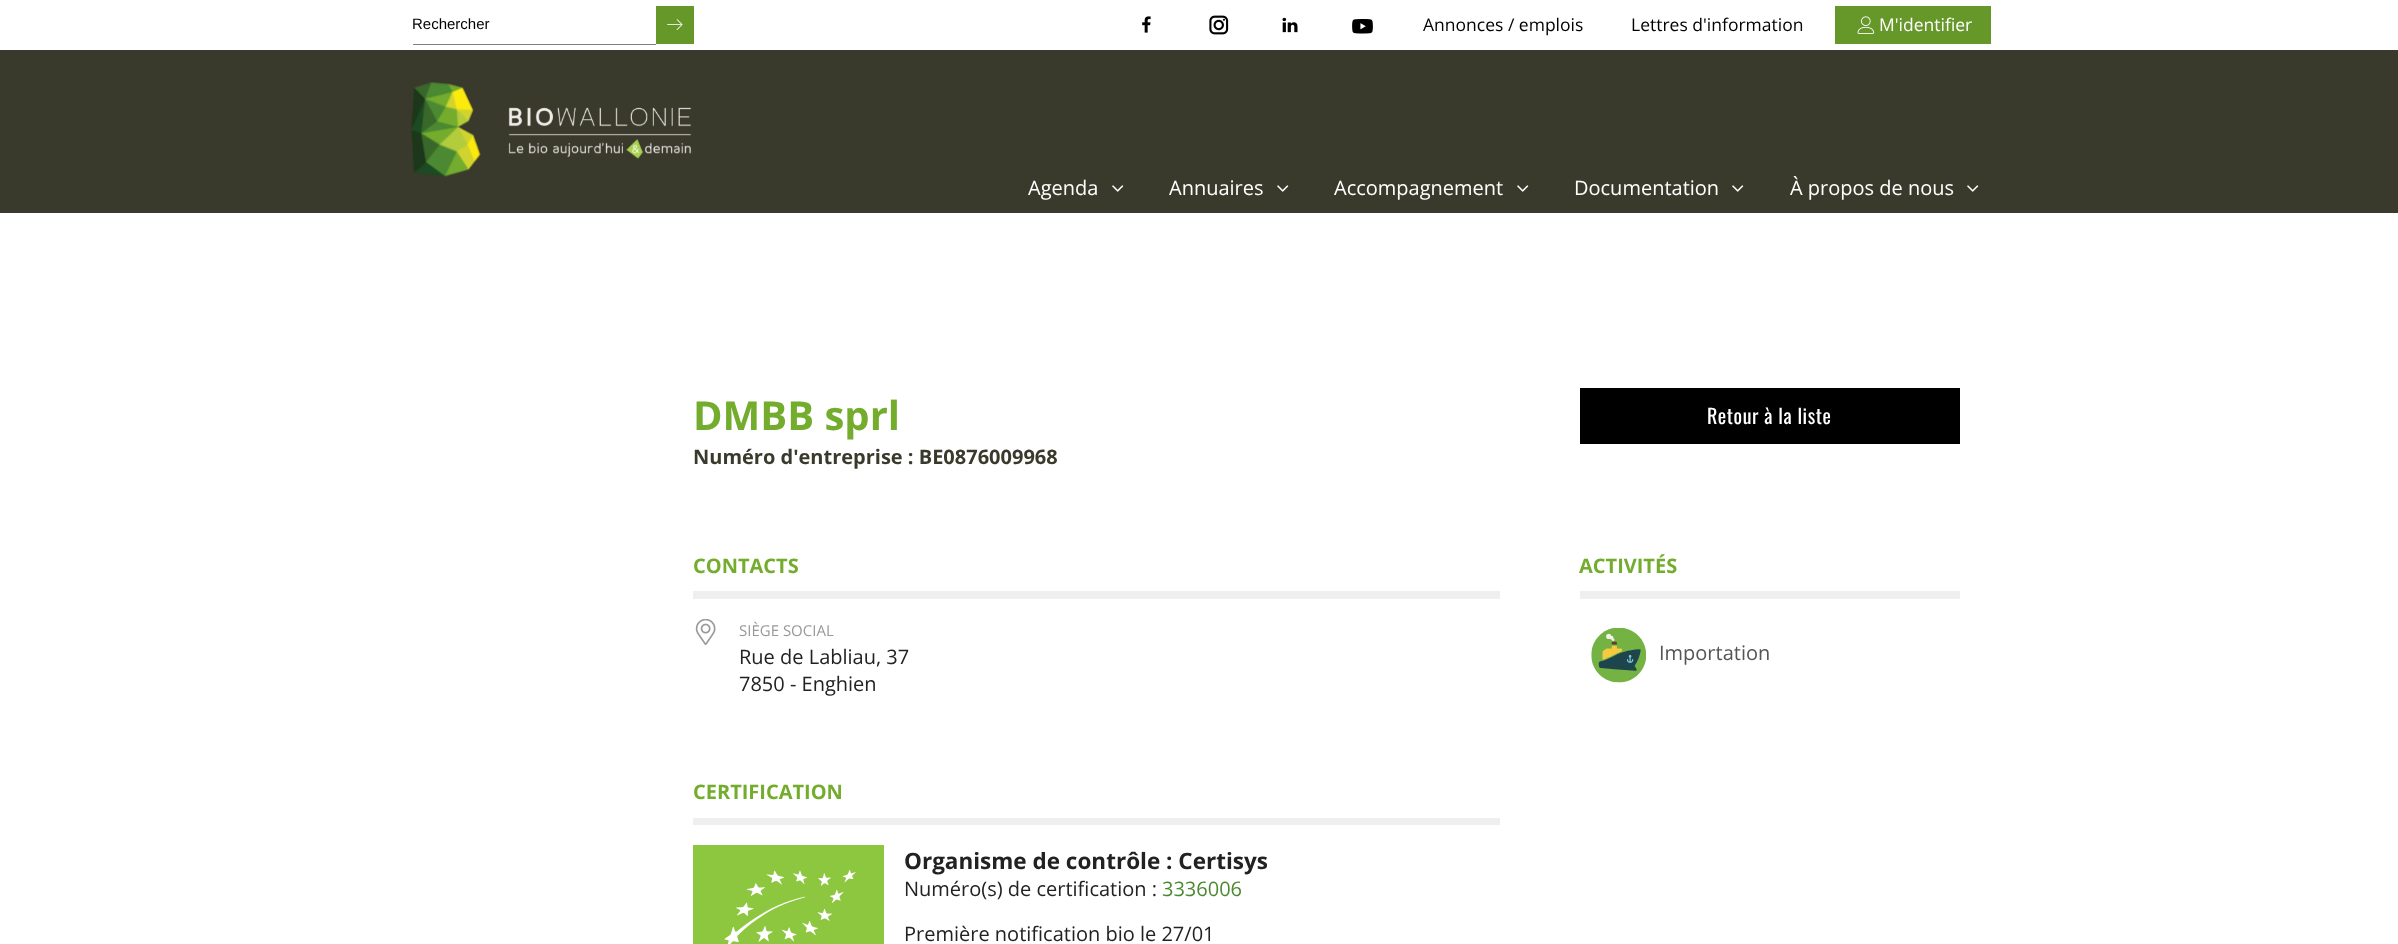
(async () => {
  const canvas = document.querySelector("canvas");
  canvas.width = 2398;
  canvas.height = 944;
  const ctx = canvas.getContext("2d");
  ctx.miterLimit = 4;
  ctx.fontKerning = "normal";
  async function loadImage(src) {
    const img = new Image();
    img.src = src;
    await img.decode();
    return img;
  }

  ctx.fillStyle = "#ffffff";
  ctx.fillRect(0, 0, 2398, 944);
  for (const [x, y, w, h, color] of [
    [0, 50, 2398, 163, "#3a3a2c"],
    [413, 44, 243, 1, "#808080"],
    [656, 6, 38, 38, "#669829"],
  ]) {
    ctx.fillStyle = color;
    ctx.fillRect(x, y, w, h);
  }
  ctx.drawImage(await loadImage("img/1.png"), 667, 19, 16, 11);
  ctx.drawImage(await loadImage("img/2.png"), 1142, 16, 9, 17);
  ctx.drawImage(await loadImage("img/3.png"), 1209, 15, 20, 20);
  ctx.drawImage(await loadImage("img/4.png"), 1282, 17, 16, 16);
  ctx.drawImage(await loadImage("img/5.png"), 1352, 18, 21, 16);
  ctx.fillRect(1835, 6, 156, 38);
  ctx.drawImage(await loadImage("img/6.png"), 1857, 16, 18, 18);
  ctx.drawImage(await loadImage("img/7.png"), 411, 82, 70, 95);
  ctx.drawImage(await loadImage("img/8.png"), 508, 107, 184, 52);
  ctx.drawImage(await loadImage("img/9.png"), 1112, 185, 12, 7);
  ctx.drawImage(await loadImage("img/9.png"), 1277, 185, 12, 7);
  ctx.drawImage(await loadImage("img/9.png"), 1517, 185, 12, 7);
  ctx.drawImage(await loadImage("img/9.png"), 1732, 185, 12, 7);
  ctx.drawImage(await loadImage("img/9.png"), 1967, 185, 12, 7);
  ctx.fillStyle = "#000000";
  ctx.fillRect(1580, 388, 380, 56);
  ctx.fillStyle = "#efefef";
  ctx.fillRect(693, 591, 807, 8);
  ctx.drawImage(await loadImage("img/10.png"), 695, 619, 21, 26);
  ctx.fillRect(1580, 591, 380, 8);
  ctx.drawImage(await loadImage("img/11.png"), 1591, 628, 55, 55);
  ctx.fillRect(693, 818, 807, 7);
  ctx.drawImage(await loadImage("img/12.png"), 693, 845, 191, 99);
  ctx.font = "15px Liberation Sans";
  ctx.fillStyle = "#000000";
  ctx.fillText("Rechercher", 412, 29);
  ctx.font = "17.5px Open Sans";
  ctx.fillText("Annonces / emplois", 1423, 31);
  ctx.fillText("Lettres d'information", 1631, 31);
  ctx.fillStyle = "#ffffff";
  ctx.fillText("M'identifier", 1879, 31);
  ctx.font = "20px Open Sans";
  for (const [text, x, y] of [
    ["Agenda", 1028, 195],
    ["Annuaires", 1169, 195],
    ["Accompagnement", 1334, 195],
    ["Documentation", 1574, 195],
    ["À propos de nous", 1790, 195],
  ]) {
    ctx.fillText(text, x, y);
  }
  ctx.font = "bold 40px Open Sans";
  ctx.fillStyle = "#74ac2e";
  ctx.fillText("DMBB sprl", 693, 430);
  ctx.font = "bold 20px Open Sans";
  ctx.fillStyle = "#3a3a2c";
  ctx.fillText("Numéro d'entreprise : BE0876009968", 693, 464);
  ctx.letterSpacing = "0.6px";
  ctx.font = "20px Oswald";
  ctx.fillStyle = "#ffffff";
  ctx.fillText("Retour à la liste", 1707, 424);
  ctx.letterSpacing = "0px";
  ctx.font = "bold 20px Open Sans";
  ctx.fillStyle = "#74ac2e";
  ctx.fillText("CONTACTS", 693, 573);
  ctx.font = "15px Open Sans";
  ctx.fillStyle = "#999999";
  ctx.fillText("SIÈGE SOCIAL", 739, 636);
  ctx.font = "20px Open Sans";
  ctx.fillStyle = "#222222";
  ctx.fillText("Rue de Labliau, 37", 739, 664);
  ctx.fillText("7850 - Enghien", 739, 691);
  ctx.font = "bold 20px Open Sans";
  ctx.fillStyle = "#74ac2e";
  ctx.fillText("ACTIVITÉS", 1579, 573);
  ctx.font = "20px Open Sans";
  ctx.fillStyle = "#555555";
  ctx.fillText("Importation", 1659, 660);
  ctx.font = "bold 20px Open Sans";
  ctx.fillStyle = "#74ac2e";
  ctx.fillText("CERTIFICATION", 693, 799);
  ctx.font = "bold 22.5px Open Sans";
  ctx.fillStyle = "#222222";
  ctx.fillText("Organisme de contrôle : Certisys", 904, 869);
  ctx.font = "20px Open Sans";
  ctx.fillText("Numéro(s) de certification :", 904, 896);
  ctx.fillStyle = "#4b8931";
  ctx.fillText("3336006", 1162, 896);
  ctx.fillStyle = "#222222";
  ctx.fillText("Première notification bio le 27/01", 904, 941);
})();
